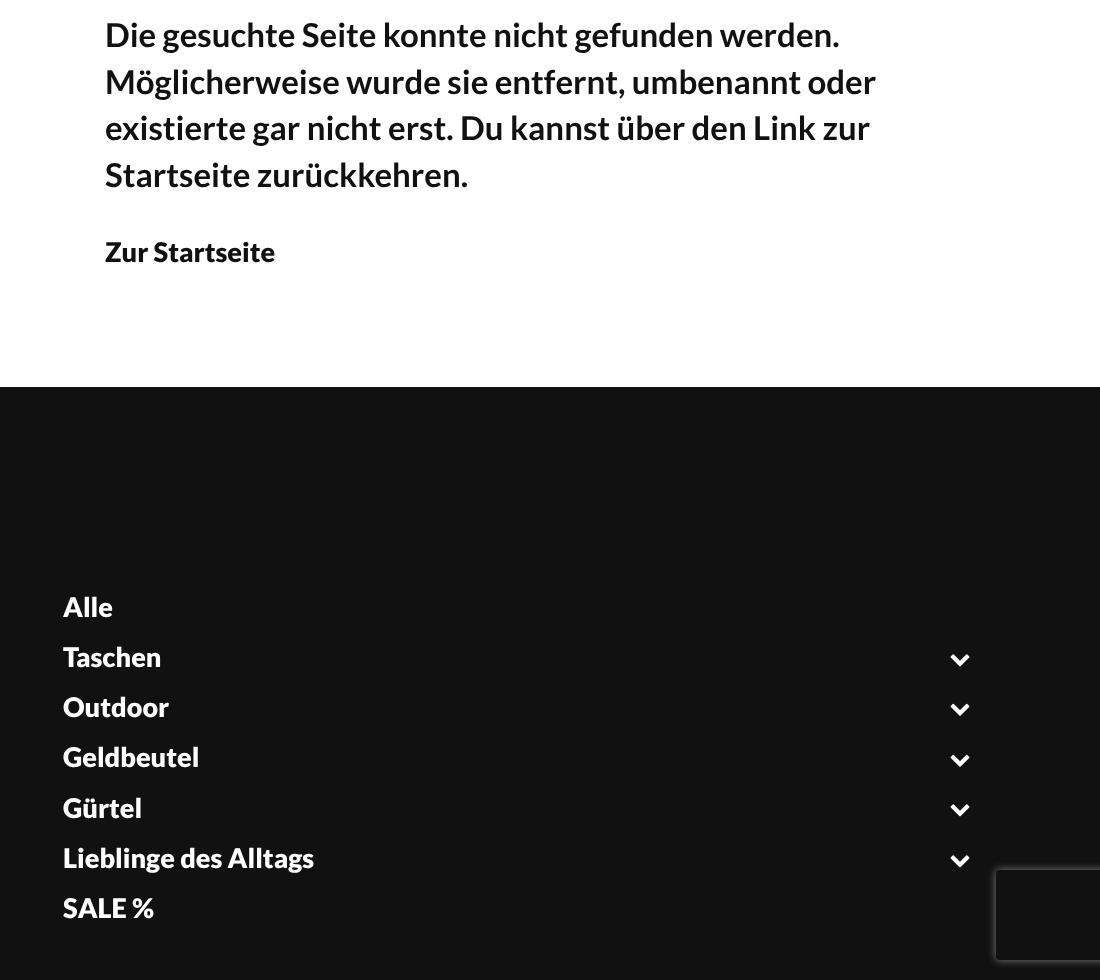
(async () => {
  const canvas = document.querySelector("canvas");
  canvas.width = 1100;
  canvas.height = 980;
  const ctx = canvas.getContext("2d");
  ctx.miterLimit = 4;
  ctx.fontKerning = "normal";
  async function loadImage(src) {
    const img = new Image();
    img.src = src;
    await img.decode();
    return img;
  }
  let path;

  ctx.fillStyle = "#111111";
  ctx.fillRect(0, 0, 1100, 980);
  ctx.fillStyle = "#ffffff";
  ctx.fillRect(0, 0, 1100, 387);
  ctx.drawImage(await loadImage("img/1.png"), 950, 654, 20, 13);
  ctx.drawImage(await loadImage("img/2.png"), 950, 703, 20, 13);
  ctx.drawImage(await loadImage("img/2.png"), 950, 754, 20, 13);
  ctx.drawImage(await loadImage("img/1.png"), 950, 804, 20, 13);
  ctx.drawImage(await loadImage("img/1.png"), 950, 855, 20, 13);
  ctx.save();
  path = new Path2D("M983 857H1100V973H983ZM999 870H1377C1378.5 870 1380 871.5 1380 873V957C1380 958.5 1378.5 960 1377 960H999C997.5 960 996 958.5 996 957V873C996 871.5 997.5 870 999 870Z");
  ctx.clip(path, "evenodd");
  ctx.fillStyle = "#808080";
  ctx.filter = "blur(4px)";
  ctx.beginPath();
  ctx.roundRect(996, 870, 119, 90, 3);
  ctx.fill();
  ctx.filter = "none";
  ctx.restore();
  ctx.font = "bold 33px Lato";
  ctx.fillStyle = "#111111";
  for (const [text, x, y] of [
    ["Die gesuchte Seite konnte nicht gefunden werden.", 105, 47],
    ["Möglicherweise wurde sie entfernt, umbenannt oder", 105, 94],
    ["existierte gar nicht erst. Du kannst über den Link zur", 105, 140],
    ["Startseite zurückkehren.", 105, 187],
  ]) {
    ctx.fillText(text, x, y);
  }
  ctx.font = "900 27px Lato";
  ctx.fillText("Zur Startseite", 105, 262);
  ctx.fillStyle = "#ffffff";
  for (const [text, x, y] of [
    ["Alle", 63, 617],
    ["Taschen", 63, 667],
    ["Outdoor", 63, 717],
    ["Geldbeutel", 63, 767],
    ["Gürtel", 63, 818],
    ["Lieblinge des Alltags", 63, 868],
    ["SALE %", 63, 918],
  ]) {
    ctx.fillText(text, x, y);
  }
})();
